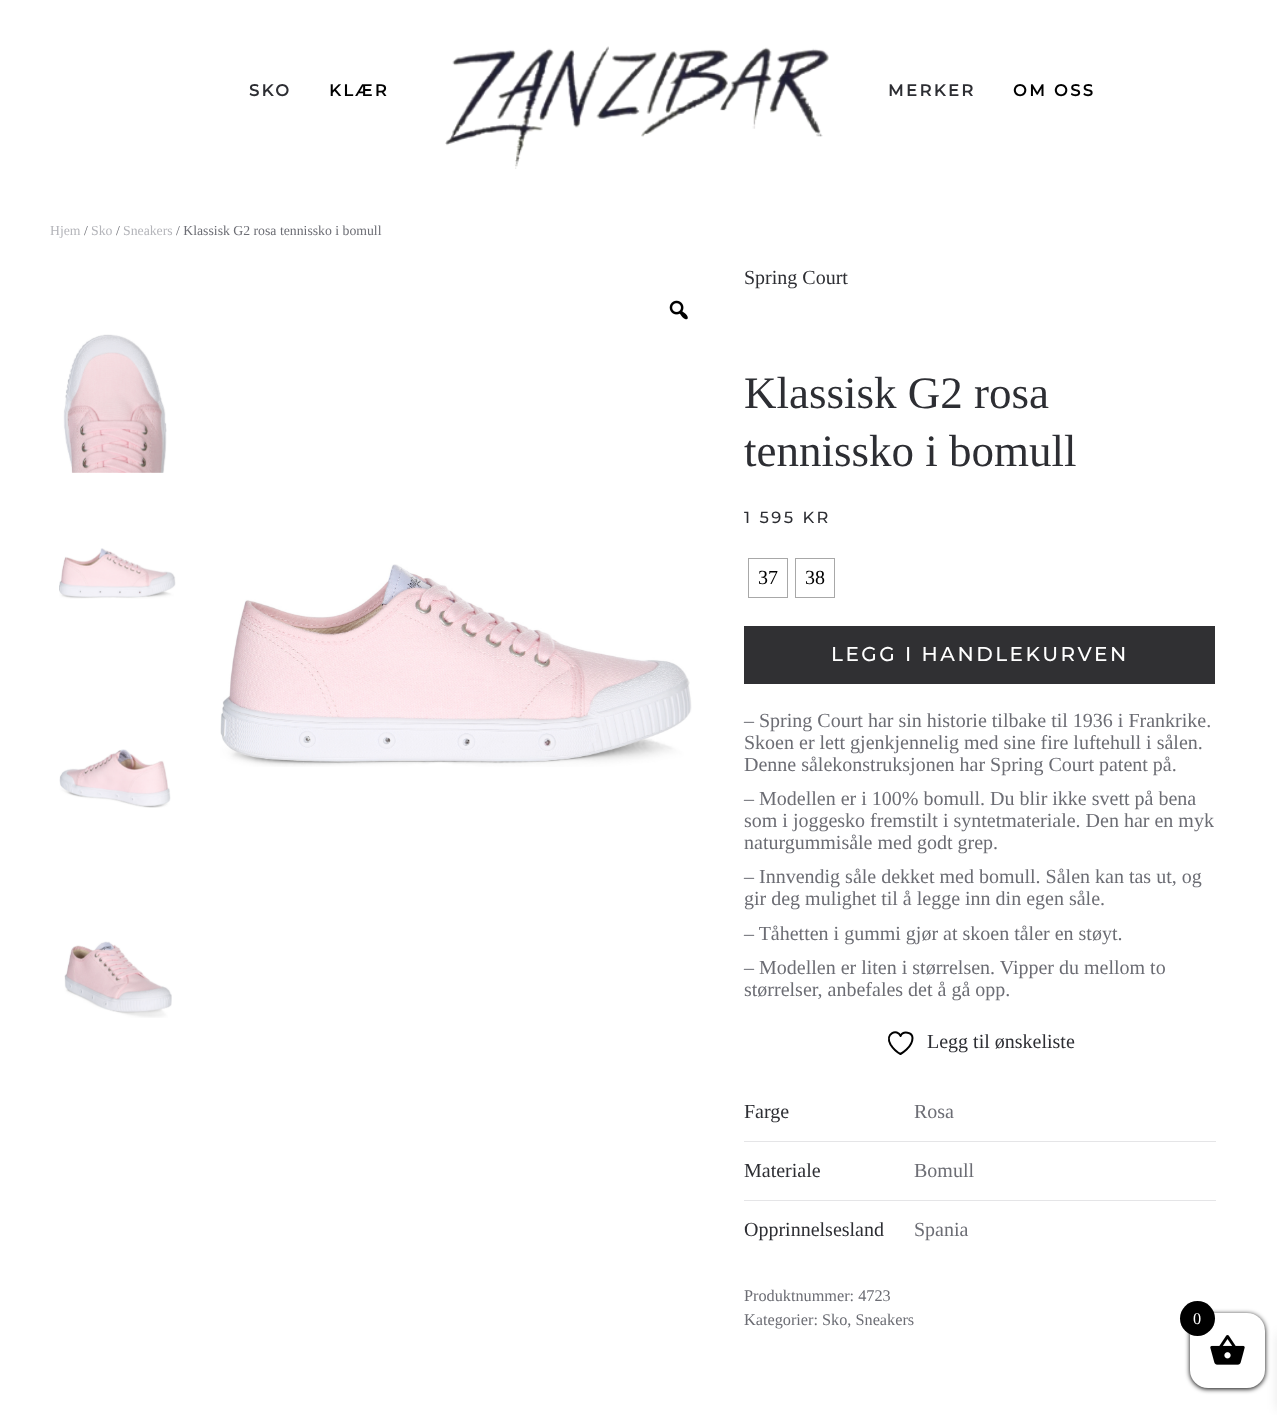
(async () => {
  const canvas = document.querySelector("canvas");
  canvas.width = 1277;
  canvas.height = 1415;
  const ctx = canvas.getContext("2d");
  ctx.miterLimit = 4;
  ctx.fontKerning = "normal";
  async function loadImage(src) {
    const img = new Image();
    img.src = src;
    await img.decode();
    return img;
  }
  let path;

  ctx.fillStyle = "#ffffff";
  ctx.fillRect(0, 0, 1277, 1415);
  ctx.drawImage(await loadImage("img/1.png"), 445, 46, 384, 123);
  ctx.drawImage(await loadImage("img/2.png"), 63, 334, 104, 139);
  ctx.drawImage(await loadImage("img/3.png"), 59, 548, 117, 51);
  ctx.drawImage(await loadImage("img/4.png"), 59, 749, 112, 59);
  ctx.drawImage(await loadImage("img/5.png"), 64, 941, 108, 77);
  ctx.drawImage(await loadImage("img/6.png"), 669, 300, 19, 20);
  ctx.drawImage(await loadImage("img/7.png"), 220, 564, 472, 203);
  ctx.strokeStyle = "#a8a8a8";
  ctx.strokeRect(748.5, 558.5, 39, 39);
  ctx.strokeRect(795.5, 558.5, 39, 39);
  ctx.fillStyle = "#303033";
  ctx.fillRect(744, 626, 471, 58);
  path = new Path2D("M912.5 1038C912.5 1032 903 1030.5 900.5 1036C897.5 1028.5 884.5 1033 890.5 1044.5C893 1048.5 896.5 1052 900.5 1054C900.5 1054 912.5 1047.5 912.5 1038Z");
  ctx.strokeStyle = "#000000";
  ctx.lineWidth = 2;
  ctx.lineCap = "round";
  ctx.lineJoin = "round";
  ctx.stroke(path);
  ctx.fillStyle = "#e5e5e7";
  ctx.fillRect(744, 1141, 472, 1);
  ctx.fillRect(744, 1200, 472, 1);
  ctx.fillStyle = "#000000";
  ctx.filter = "blur(2.5px)";
  ctx.beginPath();
  ctx.roundRect(1190, 1314, 75, 75, 18);
  ctx.fill();
  ctx.filter = "none";
  ctx.fillStyle = "rgba(0, 0, 0, 0.1)";
  ctx.filter = "blur(6px)";
  ctx.beginPath();
  ctx.rect(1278, 1334, 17, 75);
  ctx.fill();
  ctx.filter = "none";
  ctx.fillStyle = "#ffffff";
  ctx.beginPath();
  ctx.roundRect(1190, 1313, 75, 75, 18);
  ctx.fill();
  ctx.drawImage(await loadImage("img/8.png"), 1210, 1335, 35, 30);
  ctx.fillStyle = "#000000";
  ctx.beginPath();
  ctx.arc(1197.5, 1318.5, 17.5, 0, Math.PI * 2);
  ctx.fill();
  ctx.letterSpacing = "2.5px";
  ctx.font = "bold 16.25px Montserrat";
  ctx.fillStyle = "#2d2e33";
  ctx.fillText("SKO", 249, 96);
  ctx.fillStyle = "#000000";
  ctx.fillText("KLÆR", 329, 96);
  ctx.fillStyle = "#2d2e33";
  ctx.fillText("MERKER", 888, 96);
  ctx.fillStyle = "#000000";
  ctx.fillText("OM OSS", 1013, 96);
  ctx.letterSpacing = "0px";
  ctx.font = "13.75px Liberation Serif";
  ctx.fillStyle = "#b4b5ba";
  ctx.fillText("Hjem", 50, 235);
  ctx.fillStyle = "#6c6d74";
  ctx.fillText("/", 84, 235);
  ctx.fillStyle = "#b4b5ba";
  ctx.fillText("Sko", 91, 235);
  ctx.fillStyle = "#6c6d74";
  ctx.fillText("/", 116, 235);
  ctx.fillStyle = "#b4b5ba";
  ctx.fillText("Sneakers", 123, 235);
  ctx.fillStyle = "#6c6d74";
  ctx.fillText("/ Klassisk G2 rosa tennissko i bomull", 176, 235);
  ctx.font = "20px Liberation Serif";
  ctx.fillStyle = "#2d2e33";
  ctx.fillText("Spring Court", 744, 284);
  ctx.font = "45px Liberation Serif";
  ctx.fillText("Klassisk G2 rosa", 744, 408);
  ctx.fillText("tennissko i bomull", 744, 466);
  ctx.letterSpacing = "2.5px";
  ctx.font = "100 16.25px Montserrat";
  ctx.fillText("1 595 KR", 744, 523);
  ctx.letterSpacing = "0px";
  ctx.font = "20px Liberation Serif";
  ctx.fillStyle = "#000000";
  ctx.fillText("37", 758, 584);
  ctx.fillText("38", 805, 584);
  ctx.letterSpacing = "2.5px";
  ctx.font = "100 20px Montserrat";
  ctx.fillStyle = "#ffffff";
  ctx.fillText("LEGG I HANDLEKURVEN", 831, 661);
  ctx.letterSpacing = "0px";
  ctx.font = "20px Liberation Serif";
  ctx.fillStyle = "#6c6d74";
  for (const [text, x, y] of [
    ["– Spring Court har sin historie tilbake til 1936 i Frankrike.", 744, 727],
    ["Skoen er lett gjenkjennelig med sine fire luftehull i sålen.", 744, 749],
    ["Denne sålekonstruksjonen har Spring Court patent på.", 744, 771],
    ["– Modellen er i 100% bomull. Du blir ikke svett på bena", 744, 805],
    ["som i joggesko fremstilt i syntetmateriale. Den har en myk", 744, 827],
    ["naturgummisåle med godt grep.", 744, 849],
    ["– Innvendig såle dekket med bomull. Sålen kan tas ut, og", 744, 883],
    ["gir deg mulighet til å legge inn din egen såle.", 744, 905],
    ["– Tåhetten i gummi gjør at skoen tåler en støyt.", 744, 940],
    ["– Modellen er liten i størrelsen. Vipper du mellom to", 744, 974],
    ["størrelser, anbefales det å gå opp.", 744, 996],
  ]) {
    ctx.fillText(text, x, y);
  }
  ctx.fillStyle = "#2d2e33";
  ctx.fillText("Legg til ønskeliste", 927, 1048);
  ctx.fillText("Farge", 744, 1118);
  ctx.fillStyle = "#6c6d74";
  ctx.fillText("Rosa", 914, 1118);
  ctx.fillStyle = "#2d2e33";
  ctx.fillText("Materiale", 744, 1177);
  ctx.fillStyle = "#6c6d74";
  ctx.fillText("Bomull", 914, 1177);
  ctx.fillStyle = "#2d2e33";
  ctx.fillText("Opprinnelsesland", 744, 1236);
  ctx.fillStyle = "#6c6d74";
  ctx.fillText("Spania", 914, 1236);
  ctx.font = "16.25px Liberation Serif";
  ctx.fillText("Produktnummer: 4723", 744, 1301);
  ctx.fillText("Kategorier: Sko, Sneakers", 744, 1325);
  ctx.fillStyle = "#ffffff";
  ctx.fillText("0", 1193, 1324);
})();
